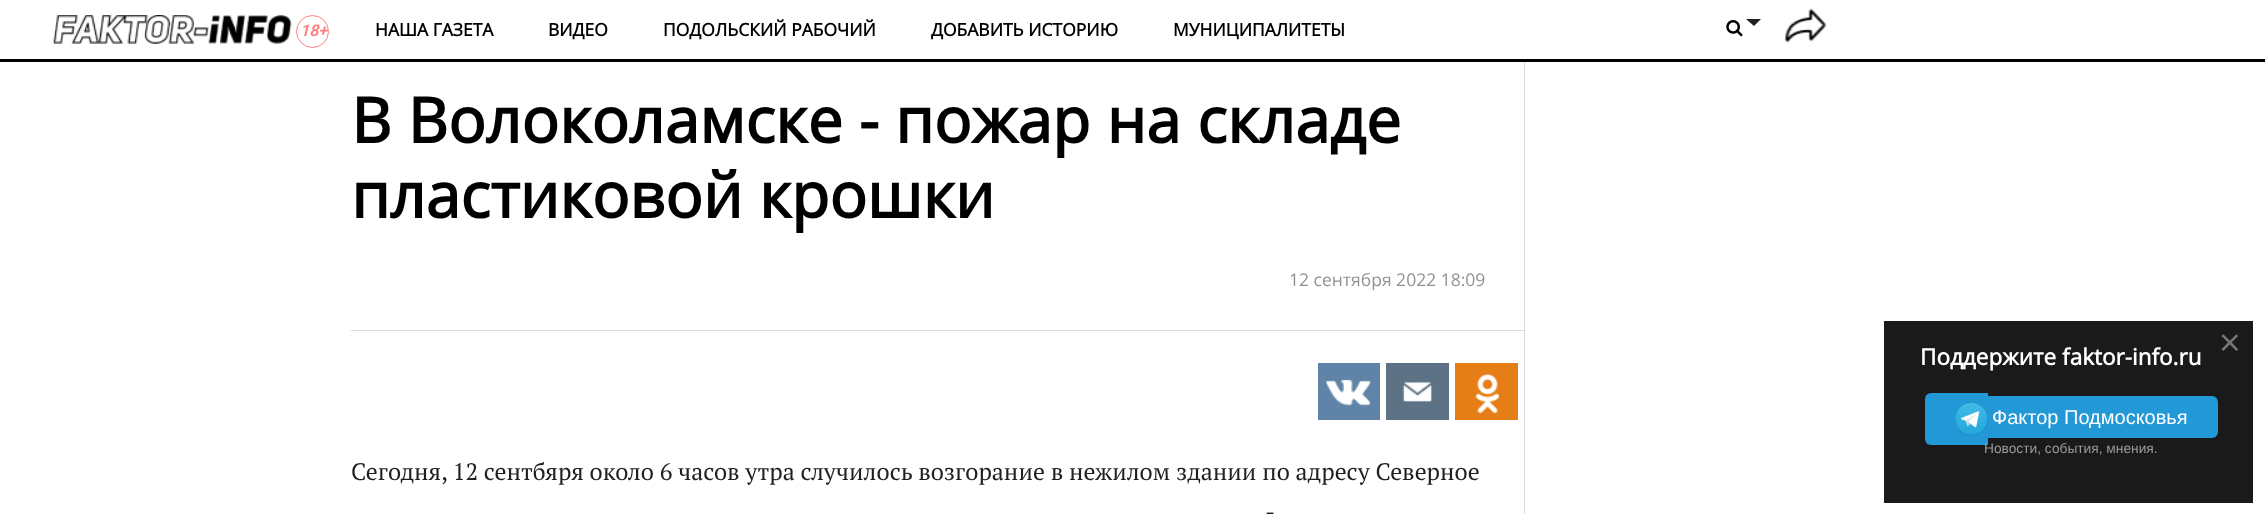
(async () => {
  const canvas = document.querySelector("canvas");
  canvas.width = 2265;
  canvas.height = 514;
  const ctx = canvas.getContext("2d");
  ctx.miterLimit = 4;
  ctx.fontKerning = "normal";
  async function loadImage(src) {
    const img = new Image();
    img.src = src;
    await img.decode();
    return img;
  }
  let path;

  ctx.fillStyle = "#ffffff";
  ctx.fillRect(0, 0, 2265, 514);
  ctx.fillStyle = "#d9d9d9";
  ctx.fillRect(1524, 59, 1, 455);
  ctx.fillStyle = "#000000";
  ctx.fillRect(0, 59, 2265, 3);
  ctx.drawImage(await loadImage("img/1.png"), 53, 15, 239, 29);
  ctx.beginPath();
  ctx.arc(312.5, 31.5, 16, 0, Math.PI * 2);
  ctx.strokeStyle = "#ff8080";
  ctx.stroke();
  ctx.drawImage(await loadImage("img/2.png"), 1726, 20, 17, 17);
  ctx.fillStyle = "#231f20";
  path = new Path2D("M1746 19H1761L1754 26Z");
  ctx.fill(path);
  ctx.drawImage(await loadImage("img/3.png"), 1784, 8, 43, 35);
  ctx.fillStyle = "#d9d9d9";
  ctx.fillRect(351, 330, 1173, 1);
  ctx.fillStyle = "#6084a8";
  ctx.fillRect(1318, 363, 62, 57);
  ctx.drawImage(await loadImage("img/4.png"), 1326, 379, 45, 27);
  ctx.fillStyle = "#5e7286";
  ctx.fillRect(1386, 363, 63, 57);
  ctx.drawImage(await loadImage("img/5.png"), 1402, 381, 31, 21);
  ctx.fillStyle = "#e67e17";
  ctx.fillRect(1455, 363, 63, 57);
  ctx.drawImage(await loadImage("img/6.png"), 1475, 373, 24, 41);
  ctx.fillStyle = "#1a1a1a";
  ctx.fillRect(1884, 321, 369, 182);
  ctx.fillStyle = "#2298d6";
  ctx.beginPath();
  ctx.roundRect(1925, 393, 63, 52, [6, 0, 0, 6]);
  ctx.fill();
  ctx.drawImage(await loadImage("img/7.png"), 1955, 402, 33, 33);
  ctx.fillRect(1988, 396, 5, 42);
  ctx.beginPath();
  ctx.roundRect(1993, 396, 225, 42, [0, 6, 6, 0]);
  ctx.fill();
  ctx.font = "italic 600 16px Roboto";
  ctx.fillStyle = "#ff7e7e";
  ctx.fillText("18+", 300, 36);
  ctx.font = "bold 17.5px Open Sans";
  ctx.fillStyle = "#000000";
  for (const [text, x, y] of [
    ["НАША ГАЗЕТА", 375, 36],
    ["ВИДЕО", 548, 36],
    ["ПОДОЛЬСКИЙ РАБОЧИЙ", 663, 36],
    ["ДОБАВИТЬ ИСТОРИЮ", 931, 36],
    ["МУНИЦИПАЛИТЕТЫ", 1173, 36],
  ]) {
    ctx.fillText(text, x, y);
  }
  ctx.font = "bold 62.5px Open Sans";
  ctx.fillText("В Волоколамске - пожар на складе", 351, 143);
  ctx.fillText("пластиковой крошки", 351, 218);
  ctx.font = "17.5px Open Sans";
  ctx.fillStyle = "#919396";
  ctx.fillText("12 сентября 2022 18:09", 1289, 286);
  ctx.font = "23.75px PT Serif";
  ctx.fillStyle = "#231f20";
  ctx.fillText("Сегодня, 12 сентбяря около 6 часов утра случилось возгорание в нежилом здании по адресу Северное", 351, 480);
  ctx.fillText("-", 1265, 520);
  ctx.font = "38px Open Sans";
  ctx.fillStyle = "#767676";
  ctx.fillText("×", 2219, 356);
  ctx.font = "bold 22.5px Open Sans";
  ctx.fillStyle = "#ffffff";
  ctx.fillText("Поддержите faktor-info.ru", 1920, 365);
  ctx.font = "20px Liberation Sans";
  ctx.fillText("Фактор Подмосковья", 1992, 424);
  ctx.font = "13.75px Liberation Sans";
  ctx.fillStyle = "#999999";
  ctx.fillText("Новости, события, мнения.", 1984, 453);
})();
